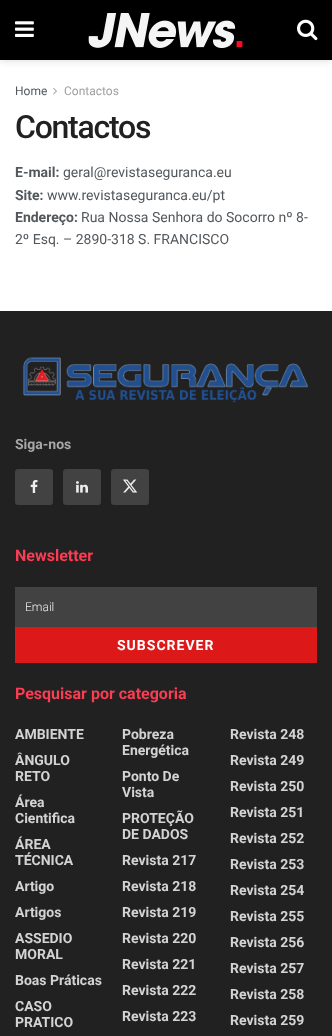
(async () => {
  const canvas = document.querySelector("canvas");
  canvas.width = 332;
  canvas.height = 1036;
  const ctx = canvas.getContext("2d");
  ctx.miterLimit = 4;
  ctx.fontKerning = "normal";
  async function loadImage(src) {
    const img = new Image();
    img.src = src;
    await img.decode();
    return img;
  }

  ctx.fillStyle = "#ffffff";
  ctx.fillRect(0, 0, 332, 1036);
  ctx.fillStyle = "rgba(0, 0, 0, 0.1)";
  ctx.filter = "blur(3px)";
  ctx.beginPath();
  ctx.rect(0, 2, 332, 60);
  ctx.fill();
  ctx.filter = "none";
  ctx.fillStyle = "#000000";
  ctx.fillRect(0, 0, 332, 60);
  ctx.drawImage(await loadImage("img/1.png"), 15, 21, 19, 16);
  ctx.drawImage(await loadImage("img/2.png"), 88, 13, 155, 35);
  ctx.drawImage(await loadImage("img/3.png"), 297, 19, 21, 22);
  ctx.drawImage(await loadImage("img/4.png"), 53, 87, 4, 8);
  ctx.fillStyle = "#212121";
  ctx.fillRect(0, 311, 332, 725);
  ctx.drawImage(await loadImage("img/5.png"), 23, 357, 285, 46);
  ctx.fillStyle = "#424242";
  ctx.beginPath();
  ctx.roundRect(15, 469, 38, 36, 3);
  ctx.fill();
  ctx.drawImage(await loadImage("img/6.png"), 30, 480, 8, 13);
  ctx.beginPath();
  ctx.roundRect(63, 469, 38, 36, 3);
  ctx.fill();
  ctx.drawImage(await loadImage("img/7.png"), 76, 481, 12, 12);
  ctx.beginPath();
  ctx.roundRect(111, 469, 38, 36, 3);
  ctx.fill();
  ctx.drawImage(await loadImage("img/8.png"), 123, 479, 15, 14);
  ctx.fillRect(15, 587, 302, 40);
  ctx.fillStyle = "#dd1818";
  ctx.fillRect(15, 627, 302, 36);
  ctx.font = "12px Roboto";
  ctx.fillStyle = "#53585c";
  ctx.fillText("Home", 15, 95);
  ctx.fillStyle = "#a0a0a0";
  ctx.fillText("Contactos", 64, 95);
  ctx.letterSpacing = "-1.25px";
  ctx.font = "500 32px Roboto";
  ctx.fillStyle = "#212121";
  ctx.fillText("Contactos", 15, 138);
  ctx.letterSpacing = "0px";
  ctx.font = "bold 14px Roboto";
  ctx.fillStyle = "#53585c";
  ctx.fillText("E-mail:", 15, 177);
  ctx.font = "14px Roboto";
  ctx.fillText("geral@revistaseguranca.eu", 63, 177);
  ctx.font = "bold 14px Roboto";
  ctx.fillText("Site:", 15, 200);
  ctx.font = "14px Roboto";
  ctx.fillText("www.revistaseguranca.eu/pt", 47, 200);
  ctx.font = "bold 14px Roboto";
  ctx.fillText("Endereço:", 15, 222);
  ctx.font = "14px Roboto";
  ctx.fillText("Rua Nossa Senhora do Socorro nº 8-", 81, 222);
  ctx.fillText("2º Esq. – 2890-318 S. FRANCISCO", 15, 244);
  ctx.font = "bold 14px Roboto";
  ctx.fillStyle = "#a8a8aa";
  ctx.fillText("Siga-nos", 15, 449);
  ctx.font = "bold 16px Roboto";
  ctx.fillStyle = "#f93d53";
  ctx.fillText("Newsletter", 15, 561);
  ctx.font = "300 12px Roboto";
  ctx.fillStyle = "#eeeeee";
  ctx.fillText("Email", 25, 611);
  ctx.letterSpacing = "1px";
  ctx.font = "bold 14px Roboto";
  ctx.fillStyle = "#ffffff";
  ctx.fillText("SUBSCREVER", 117, 650);
  ctx.letterSpacing = "0px";
  ctx.font = "bold 16px Roboto";
  ctx.fillStyle = "#f93d53";
  ctx.fillText("Pesquisar por categoria", 15, 699);
  ctx.font = "bold 14px Roboto";
  ctx.fillStyle = "#d3d3d3";
  for (const [text, x, y] of [
    ["AMBIENTE", 15, 739],
    ["Pobreza", 122, 739],
    ["Energética", 122, 755],
    ["Revista 248", 230, 739],
    ["ÂNGULO", 15, 765],
    ["RETO", 15, 781],
    ["Revista 249", 230, 765],
    ["Ponto De", 122, 781],
    ["Vista", 122, 797],
    ["Revista 250", 230, 791],
    ["Área", 15, 807],
    ["Cientifica", 15, 823],
    ["PROTEÇÃO", 122, 823],
    ["DE DADOS", 122, 839],
    ["Revista 251", 230, 817],
    ["ÁREA", 15, 849],
    ["TÉCNICA", 15, 865],
    ["Revista 217", 122, 865],
    ["Revista 252", 230, 843],
    ["Revista 253", 230, 869],
    ["Artigo", 15, 891],
    ["Revista 218", 122, 891],
    ["Revista 254", 230, 895],
    ["Artigos", 15, 917],
    ["Revista 219", 122, 917],
    ["Revista 255", 230, 921],
    ["ASSEDIO", 15, 943],
    ["MORAL", 15, 959],
    ["Revista 220", 122, 943],
    ["Revista 256", 230, 947],
    ["Revista 221", 122, 969],
    ["Revista 257", 230, 973],
    ["Boas Práticas", 15, 985],
    ["Revista 222", 122, 995],
    ["Revista 258", 230, 999],
    ["CASO", 15, 1011],
    ["PRATICO", 15, 1027],
    ["Revista 223", 122, 1021],
    ["Revista 259", 230, 1025],
  ]) {
    ctx.fillText(text, x, y);
  }
})();
